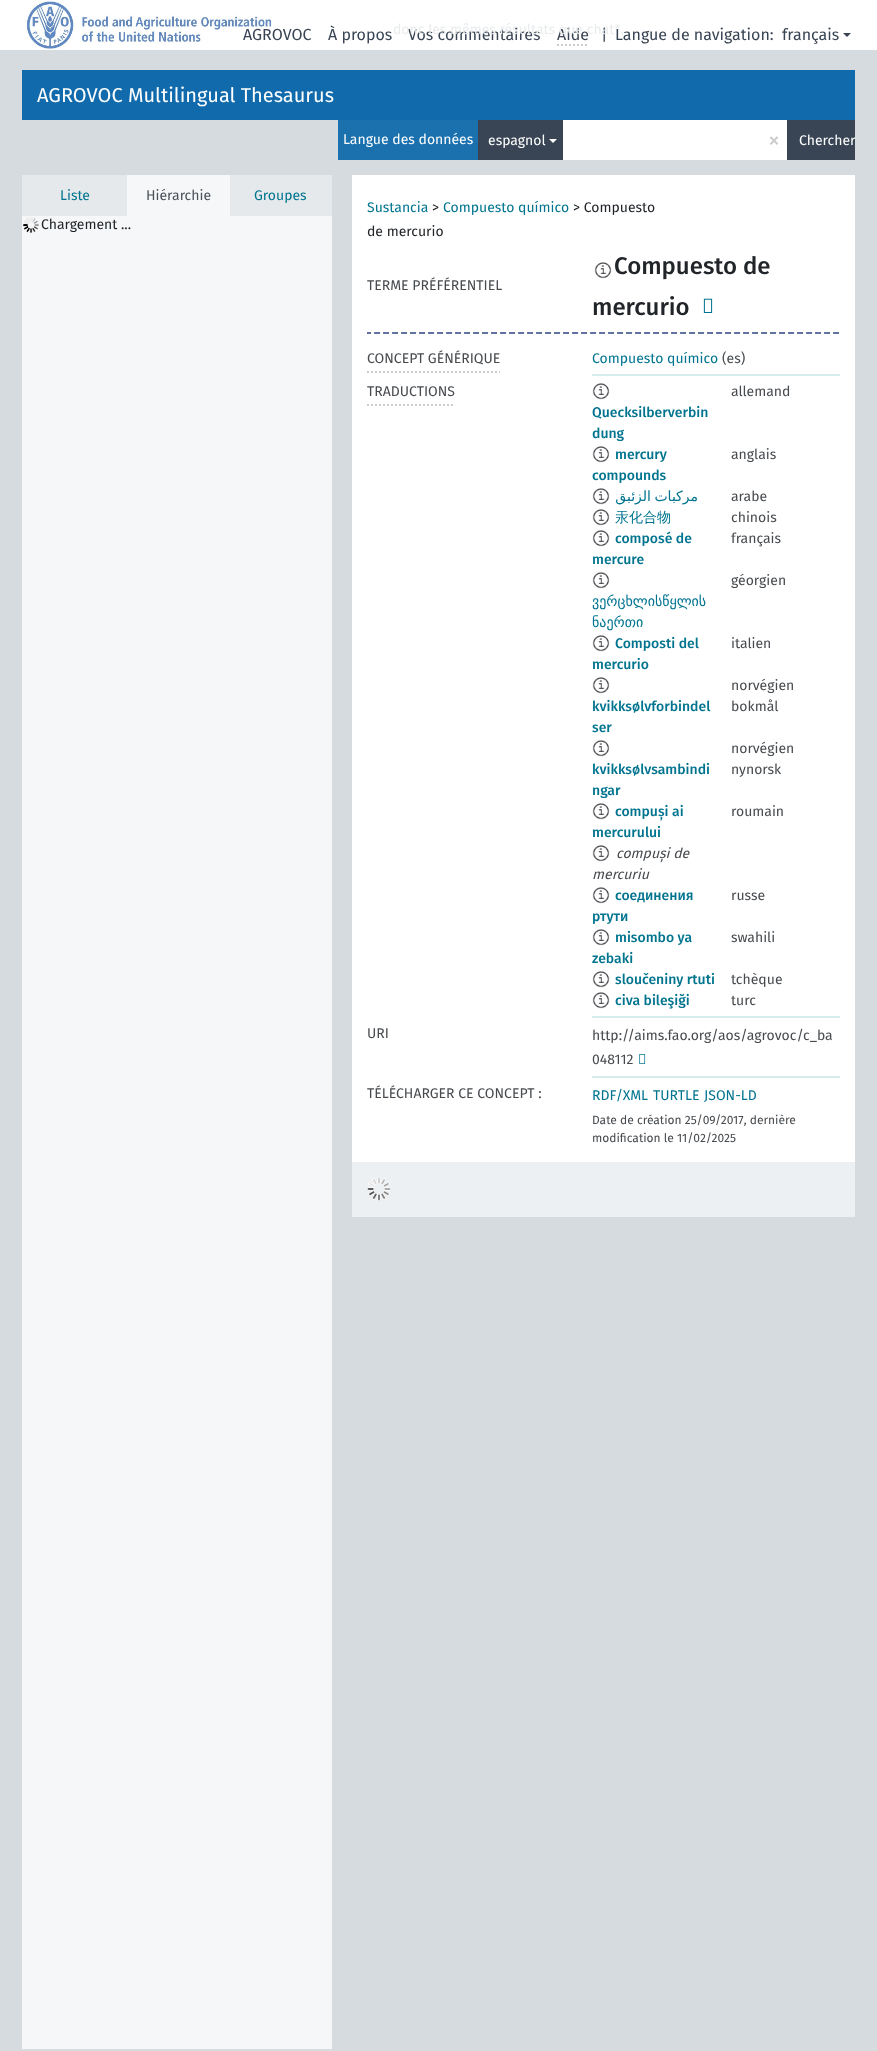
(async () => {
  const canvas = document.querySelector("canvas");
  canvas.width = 877;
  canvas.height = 2051;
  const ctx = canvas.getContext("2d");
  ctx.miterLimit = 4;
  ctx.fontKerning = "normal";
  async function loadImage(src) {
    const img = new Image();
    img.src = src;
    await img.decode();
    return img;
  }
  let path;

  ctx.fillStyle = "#d5dbde";
  ctx.fillRect(0, 0, 877, 2051);
  ctx.fillStyle = "#ffffff";
  ctx.fillRect(0, 0, 877, 50);
  ctx.drawImage(await loadImage("img/1.png"), 26, 1, 246, 49);
  path = new Path2D("M557 45H589");
  ctx.strokeStyle = "#cccccc";
  ctx.lineWidth = 2;
  ctx.setLineDash([2, 2]);
  ctx.stroke(path);
  ctx.fillStyle = "#394554";
  path = new Path2D("M843 33H851L847 37Z");
  ctx.fill(path);
  for (const [x, y, w, h, color] of [
    [22, 70, 833, 50, "#116aab"],
    [338, 120, 140, 40, "#1b70ae"],
    [478, 120, 85, 40, "#394554"],
  ]) {
    ctx.fillStyle = color;
    ctx.fillRect(x, y, w, h);
  }
  ctx.fillStyle = "#ffffff";
  path = new Path2D("M549 139H557L553 143Z");
  ctx.fill(path);
  for (const [x, y, w, h, color] of [
    [563, 120, 224, 40, "#ffffff"],
    [787, 120, 68, 40, "#394554"],
    [22, 175, 105, 41, "#e6e9eb"],
    [127, 175, 103, 41, "#f6f7f8"],
    [230, 175, 102, 41, "#e6e9eb"],
    [22, 216, 310, 1833, "#f6f7f8"],
  ]) {
    ctx.fillStyle = color;
    ctx.fillRect(x, y, w, h);
  }
  ctx.drawImage(await loadImage("img/2.png"), 23, 217, 16, 16);
  ctx.fillStyle = "#ffffff";
  ctx.fillRect(352, 175, 503, 987);
  ctx.drawImage(await loadImage("img/3.png"), 594, 262, 18, 17);
  ctx.drawImage(await loadImage("img/4.png"), 703, 298, 10, 15);
  ctx.drawImage(await loadImage("img/5.png"), 367, 332, 473, 2);
  path = new Path2D("M367 372H500");
  ctx.stroke(path);
  ctx.fillStyle = "#d4edeb";
  ctx.fillRect(592, 374, 248, 2);
  path = new Path2D("M367 405H455");
  ctx.stroke(path);
  ctx.fillRect(592, 1016, 248, 2);
  ctx.drawImage(await loadImage("img/3.png"), 592, 383, 18, 17);
  ctx.drawImage(await loadImage("img/3.png"), 592, 446, 18, 17);
  ctx.drawImage(await loadImage("img/3.png"), 592, 488, 18, 17);
  ctx.drawImage(await loadImage("img/3.png"), 592, 509, 18, 17);
  ctx.drawImage(await loadImage("img/6.png"), 592, 530, 18, 17);
  ctx.drawImage(await loadImage("img/7.png"), 592, 572, 18, 17);
  ctx.drawImage(await loadImage("img/3.png"), 592, 635, 18, 17);
  ctx.drawImage(await loadImage("img/3.png"), 592, 677, 18, 17);
  ctx.drawImage(await loadImage("img/3.png"), 592, 740, 18, 17);
  ctx.drawImage(await loadImage("img/7.png"), 592, 803, 18, 17);
  ctx.drawImage(await loadImage("img/3.png"), 592, 845, 18, 17);
  ctx.drawImage(await loadImage("img/3.png"), 592, 887, 18, 17);
  ctx.drawImage(await loadImage("img/3.png"), 592, 929, 18, 17);
  ctx.drawImage(await loadImage("img/3.png"), 592, 971, 18, 17);
  ctx.drawImage(await loadImage("img/3.png"), 592, 992, 18, 17);
  ctx.fillRect(592, 1076, 248, 2);
  ctx.drawImage(await loadImage("img/8.png"), 639, 1054, 7, 10);
  ctx.fillStyle = "#edf0f2";
  ctx.fillRect(352, 1162, 503, 55);
  ctx.drawImage(await loadImage("img/9.png"), 367, 1177, 24, 24);
  ctx.font = "16px Fira Sans";
  ctx.fillStyle = "#394554";
  for (const [text, x, y] of [
    ["À propos", 328, 40],
    ["Aide", 557, 40],
    ["AGROVOC", 243, 40],
    ["Vos commentaires", 408, 40],
    ["|", 601, 40],
    ["Langue de navigation:", 615, 40],
  ]) {
    ctx.fillText(text, x, y);
  }
  ctx.font = "14px Fira Sans";
  ctx.fillStyle = "#e9ebec";
  ctx.fillText("donc les mêmes résultats que chat*.", 393, 34);
  ctx.font = "16px Fira Sans";
  ctx.fillStyle = "#394554";
  ctx.fillText("français", 782, 40);
  ctx.font = "20px Fira Sans";
  ctx.fillStyle = "#fdfefe";
  ctx.fillText("AGROVOC Multilingual Thesaurus", 37, 102);
  ctx.font = "14px Fira Sans";
  ctx.fillText("Langue des données", 343, 144);
  ctx.fillText("espagnol", 488, 145);
  ctx.font = "24px Fira Sans";
  ctx.fillStyle = "#cccccc";
  ctx.fillText("×", 768, 148);
  ctx.font = "14px Fira Sans";
  ctx.fillStyle = "#fdfefe";
  ctx.fillText("Chercher", 799, 145);
  ctx.fillStyle = "#00748f";
  ctx.fillText("Liste", 60, 200);
  ctx.fillStyle = "#495057";
  ctx.fillText("Hiérarchie", 146, 200);
  ctx.fillStyle = "#00748f";
  ctx.fillText("Groupes", 254, 200);
  ctx.fillStyle = "#212529";
  ctx.fillText("Chargement ...", 41, 229);
  ctx.fillStyle = "#00748f";
  ctx.fillText("Sustancia", 367, 212);
  ctx.fillStyle = "#212529";
  ctx.fillText(">", 432, 212);
  ctx.fillStyle = "#00748f";
  ctx.fillText("Compuesto químico", 443, 212);
  ctx.fillStyle = "#212529";
  ctx.fillText("> Compuesto", 573, 212);
  ctx.fillText("de mercurio", 367, 236);
  ctx.fillStyle = "#474b4f";
  ctx.fillText("TERME PRÉFÉRENTIEL", 367, 290);
  ctx.font = "500 24px Fira Sans";
  ctx.fillStyle = "#212529";
  ctx.fillText("Compuesto de", 614, 274);
  ctx.fillText("mercurio", 592, 315);
  ctx.font = "14px Fira Sans";
  ctx.fillStyle = "#474b4f";
  ctx.fillText("CONCEPT GÉNÉRIQUE", 367, 363);
  ctx.fillStyle = "#00748f";
  ctx.fillText("Compuesto químico", 592, 363);
  ctx.fillStyle = "#474b4f";
  for (const [text, x, y] of [
    ["(es)", 722, 363],
    ["TRADUCTIONS", 367, 396],
    ["allemand", 731, 396],
  ]) {
    ctx.fillText(text, x, y);
  }
  ctx.font = "500 14px Fira Sans";
  ctx.fillStyle = "#00748f";
  for (const [text, x, y] of [
    ["Quecksilberverbin", 592, 417],
    ["dung", 592, 438],
    ["mercury", 615, 459],
    ["compounds", 592, 480],
  ]) {
    ctx.fillText(text, x, y);
  }
  ctx.font = "14px Fira Sans";
  ctx.fillStyle = "#474b4f";
  ctx.fillText("anglais", 731, 459);
  ctx.wordSpacing = "-1px";
  ctx.direction = "rtl";
  ctx.font = "14px DejaVu Sans";
  ctx.fillStyle = "#00748f";
  ctx.fillText("مركبات الزئبق", 698, 501);
  ctx.wordSpacing = "0px";
  ctx.direction = "ltr";
  ctx.font = "14px Fira Sans";
  ctx.fillStyle = "#474b4f";
  ctx.fillText("arabe", 731, 501);
  ctx.font = "500 14px WenQuanYi Zen Hei";
  ctx.fillStyle = "#00748f";
  ctx.fillText("汞化合物", 615, 522);
  ctx.font = "14px Fira Sans";
  ctx.fillStyle = "#474b4f";
  ctx.fillText("chinois", 731, 522);
  ctx.font = "500 14px Fira Sans";
  ctx.fillStyle = "#00748f";
  ctx.fillText("composé de", 615, 543);
  ctx.fillText("mercure", 592, 564);
  ctx.font = "14px Fira Sans";
  ctx.fillStyle = "#474b4f";
  ctx.fillText("français", 731, 543);
  ctx.fillText("géorgien", 731, 585);
  ctx.font = "14px DejaVu Sans";
  ctx.fillStyle = "#00748f";
  ctx.fillText("ვერცხლისწყლის", 592, 606);
  ctx.fillText("ნაერთი", 592, 627);
  ctx.font = "500 14px Fira Sans";
  ctx.fillText("Composti del", 615, 648);
  ctx.fillText("mercurio", 592, 669);
  ctx.font = "14px Fira Sans";
  ctx.fillStyle = "#474b4f";
  for (const [text, x, y] of [
    ["italien", 731, 648],
    ["norvégien", 731, 690],
    ["bokmål", 731, 711],
  ]) {
    ctx.fillText(text, x, y);
  }
  ctx.font = "500 14px Fira Sans";
  ctx.fillStyle = "#00748f";
  for (const [text, x, y] of [
    ["kvikksølvforbindel", 592, 711],
    ["ser", 592, 732],
    ["kvikksølvsambindi", 592, 774],
    ["ngar", 592, 795],
  ]) {
    ctx.fillText(text, x, y);
  }
  ctx.font = "14px Fira Sans";
  ctx.fillStyle = "#474b4f";
  ctx.fillText("norvégien", 731, 753);
  ctx.fillText("nynorsk", 731, 774);
  ctx.font = "500 14px Fira Sans";
  ctx.fillStyle = "#00748f";
  ctx.fillText("compuși ai", 615, 816);
  ctx.fillText("mercurului", 592, 837);
  ctx.font = "14px Fira Sans";
  ctx.fillStyle = "#474b4f";
  ctx.fillText("roumain", 731, 816);
  ctx.font = "italic 14px Fira Sans";
  ctx.fillText("compuși de", 616, 858);
  ctx.fillText("mercuriu", 592, 879);
  ctx.font = "500 14px Fira Sans";
  ctx.fillStyle = "#00748f";
  ctx.fillText("соединения", 615, 900);
  ctx.fillText("ртути", 592, 921);
  ctx.font = "14px Fira Sans";
  ctx.fillStyle = "#474b4f";
  ctx.fillText("russe", 731, 900);
  ctx.font = "500 14px Fira Sans";
  ctx.fillStyle = "#00748f";
  ctx.fillText("misombo ya", 615, 942);
  ctx.fillText("zebaki", 592, 963);
  ctx.font = "14px Fira Sans";
  ctx.fillStyle = "#474b4f";
  ctx.fillText("swahili", 731, 942);
  ctx.font = "500 14px Fira Sans";
  ctx.fillStyle = "#00748f";
  ctx.fillText("sloučeniny rtuti", 615, 984);
  ctx.font = "14px Fira Sans";
  ctx.fillStyle = "#474b4f";
  ctx.fillText("tchèque", 731, 984);
  ctx.font = "500 14px Fira Sans";
  ctx.fillStyle = "#00748f";
  ctx.fillText("civa bileşiği", 615, 1005);
  ctx.font = "14px Fira Sans";
  ctx.fillStyle = "#474b4f";
  for (const [text, x, y] of [
    ["turc", 731, 1005],
    ["URI", 367, 1038],
    ["http://aims.fao.org/aos/agrovoc/c_ba", 592, 1040],
    ["048112", 592, 1064],
    ["TÉLÉCHARGER CE CONCEPT :", 367, 1098],
  ]) {
    ctx.fillText(text, x, y);
  }
  ctx.fillStyle = "#00748f";
  for (const [text, x, y] of [
    ["RDF/XML", 592, 1100],
    ["TURTLE", 653, 1100],
    ["JSON-LD", 704, 1100],
  ]) {
    ctx.fillText(text, x, y);
  }
  ctx.font = "12px Fira Sans";
  ctx.fillStyle = "#474b4f";
  ctx.fillText("Date de création 25/09/2017, dernière", 592, 1124);
  ctx.fillText("modification le 11/02/2025", 592, 1142);
})();
